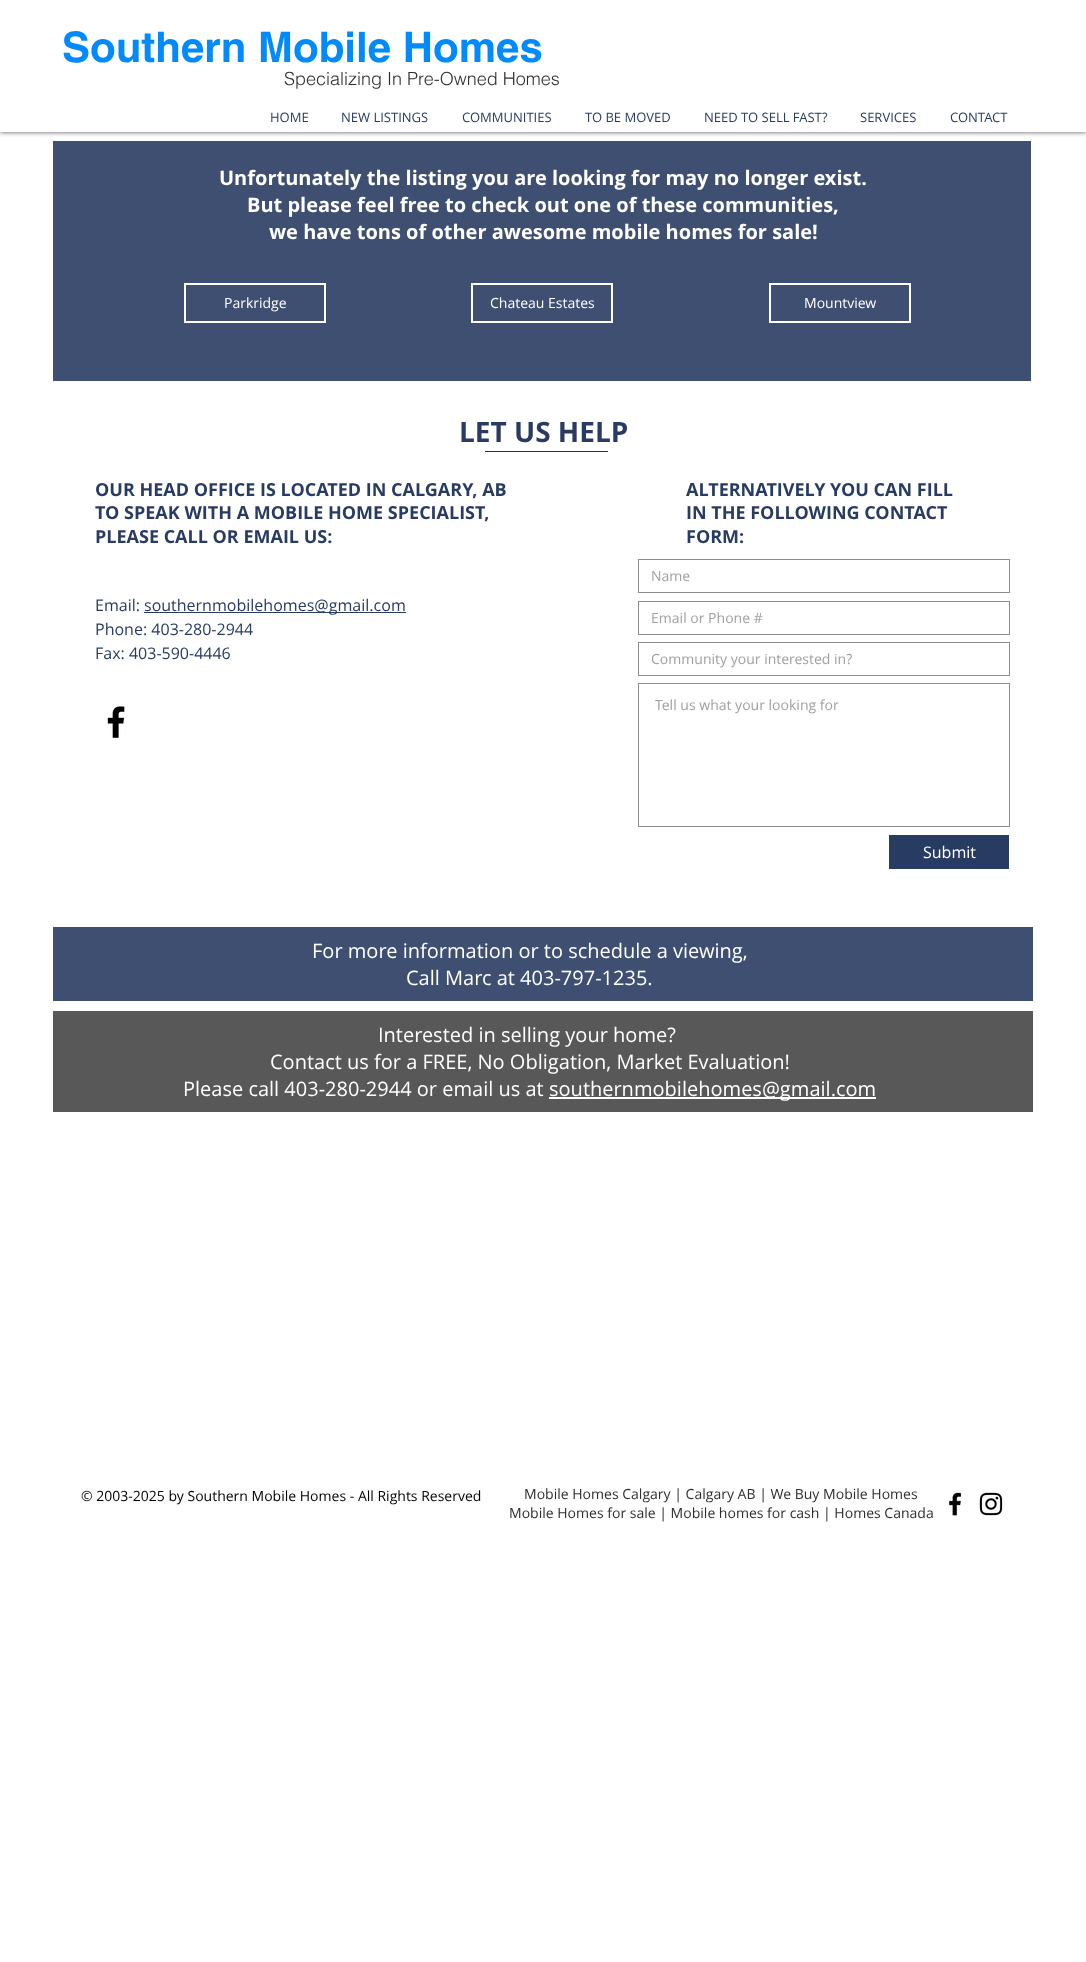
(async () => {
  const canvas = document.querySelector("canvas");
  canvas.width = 1086;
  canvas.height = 1962;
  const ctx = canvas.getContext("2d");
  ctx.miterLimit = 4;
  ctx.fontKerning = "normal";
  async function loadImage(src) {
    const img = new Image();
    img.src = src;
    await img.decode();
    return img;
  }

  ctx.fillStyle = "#ffffff";
  ctx.fillRect(0, 0, 1086, 1962);
  ctx.save();
  ctx.beginPath();
  ctx.rect(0, 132, 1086, 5);
  ctx.clip();
  ctx.fillStyle = "rgba(0, 0, 0, 0.7)";
  ctx.filter = "blur(2.5px)";
  ctx.beginPath();
  ctx.rect(0, 0, 1086, 132);
  ctx.fill();
  ctx.filter = "none";
  ctx.restore();
  ctx.fillStyle = "#3e4f72";
  ctx.fillRect(53, 141, 978, 240);
  ctx.strokeStyle = "#ffffff";
  ctx.lineWidth = 2;
  ctx.strokeRect(185, 284, 140, 38);
  ctx.strokeRect(472, 284, 140, 38);
  ctx.strokeRect(770, 284, 140, 38);
  ctx.fillStyle = "#2f2e2e";
  ctx.fillRect(485, 451, 123, 1);
  ctx.fillStyle = "#283b62";
  ctx.fillRect(144, 612, 262, 1);
  ctx.strokeStyle = "#8d8c8c";
  ctx.lineWidth = 1;
  ctx.strokeRect(638.5, 559.5, 371, 33);
  ctx.strokeRect(638.5, 601.5, 371, 33);
  ctx.strokeRect(638.5, 642.5, 371, 33);
  ctx.strokeRect(638.5, 683.5, 371, 143);
  ctx.fillRect(889, 835, 120, 34);
  ctx.drawImage(await loadImage("img/1.png"), 107, 706, 18, 32);
  for (const [x, y, w, h, color] of [
    [53, 927, 980, 74, "#3e4f72"],
    [53, 1011, 980, 101, "#595858"],
    [549, 1097, 327, 2, "#ffffff"],
  ]) {
    ctx.fillStyle = color;
    ctx.fillRect(x, y, w, h);
  }
  ctx.drawImage(await loadImage("img/2.png"), 949, 1492, 13, 24);
  ctx.drawImage(await loadImage("img/3.png"), 979, 1492, 24, 24);
  ctx.font = "bold 42px helvetica";
  ctx.fillStyle = "#008afc";
  ctx.fillText("Southern Mobile Homes", 62, 62);
  ctx.font = "300 18px helvetica";
  ctx.fillStyle = "#2f2e2e";
  ctx.fillText("Specializing In Pre-Owned Homes", 284, 85);
  ctx.font = "13px Open Sans";
  ctx.fillStyle = "#283b62";
  for (const [text, x, y] of [
    ["HOME", 270, 122],
    ["NEW LISTINGS", 341, 122],
    ["COMMUNITIES", 462, 122],
    ["TO BE MOVED", 585, 122],
    ["NEED TO SELL FAST?", 704, 122],
    ["SERVICES", 860, 122],
    ["CONTACT", 950, 122],
  ]) {
    ctx.fillText(text, x, y);
  }
  ctx.font = "bold 20px Open Sans";
  ctx.fillStyle = "#ffffff";
  for (const [text, x, y] of [
    ["Unfortunately the listing you are looking for may no longer exist.", 219, 185],
    ["But please feel free to check out one of these communities,", 247, 212],
    ["we have tons of other awesome mobile homes for sale!", 269, 239],
  ]) {
    ctx.fillText(text, x, y);
  }
  ctx.font = "14px Open Sans";
  for (const [text, x, y] of [
    ["Parkridge", 224, 308],
    ["Chateau Estates", 490, 308],
    ["Mountview", 804, 308],
  ]) {
    ctx.fillText(text, x, y);
  }
  ctx.font = "bold 28px Open Sans";
  ctx.fillStyle = "#283b62";
  ctx.fillText("LET US HELP", 459, 442);
  ctx.font = "bold 18px Open Sans";
  for (const [text, x, y] of [
    ["OUR HEAD OFFICE IS LOCATED IN CALGARY, AB", 95, 496],
    ["TO SPEAK WITH A MOBILE HOME SPECIALIST,", 95, 519],
    ["PLEASE CALL OR EMAIL US:", 95, 543],
    ["ALTERNATIVELY YOU CAN FILL", 686, 496],
    ["IN THE FOLLOWING CONTACT", 686, 519],
    ["FORM:", 686, 543],
  ]) {
    ctx.fillText(text, x, y);
  }
  ctx.font = "16px Open Sans";
  for (const [text, x, y] of [
    ["Email:", 95, 611],
    ["southernmobilehomes@gmail.com", 144, 611],
    ["Phone: 403-280-2944", 95, 635],
    ["Fax: 403-590-4446", 95, 659],
  ]) {
    ctx.fillText(text, x, y);
  }
  ctx.font = "14px Open Sans";
  ctx.fillStyle = "#a0a09f";
  for (const [text, x, y] of [
    ["Name", 651, 581],
    ["Email or Phone #", 651, 623],
    ["Community your interested in?", 651, 664],
    ["Tell us what your looking for", 655, 710],
  ]) {
    ctx.fillText(text, x, y);
  }
  ctx.font = "16px Open Sans";
  ctx.fillStyle = "#ffffff";
  ctx.fillText("Submit", 923, 858);
  ctx.font = "20px Open Sans";
  for (const [text, x, y] of [
    ["For more information or to schedule a viewing,", 312, 958],
    ["Call Marc at 403-797-1235.", 406, 985],
    ["Interested in selling your home?", 378, 1042],
    ["Contact us for a FREE, No Obligation, Market Evaluation!", 270, 1069],
    ["Please call 403-280-2944 or email us at", 183, 1096],
    ["southernmobilehomes@gmail.com", 549, 1096],
  ]) {
    ctx.fillText(text, x, y);
  }
  ctx.font = "14px Open Sans";
  ctx.fillStyle = "#000000";
  ctx.fillText("© 2003-2025 by Southern Mobile Homes - All Rights Reserved", 81, 1501);
  ctx.fillStyle = "#2f2e2e";
  ctx.fillText("Mobile Homes Calgary | Calgary AB | We Buy Mobile Homes", 524, 1499);
  ctx.fillText("Mobile Homes for sale | Mobile homes for cash | Homes Canada", 509, 1518);
})();
